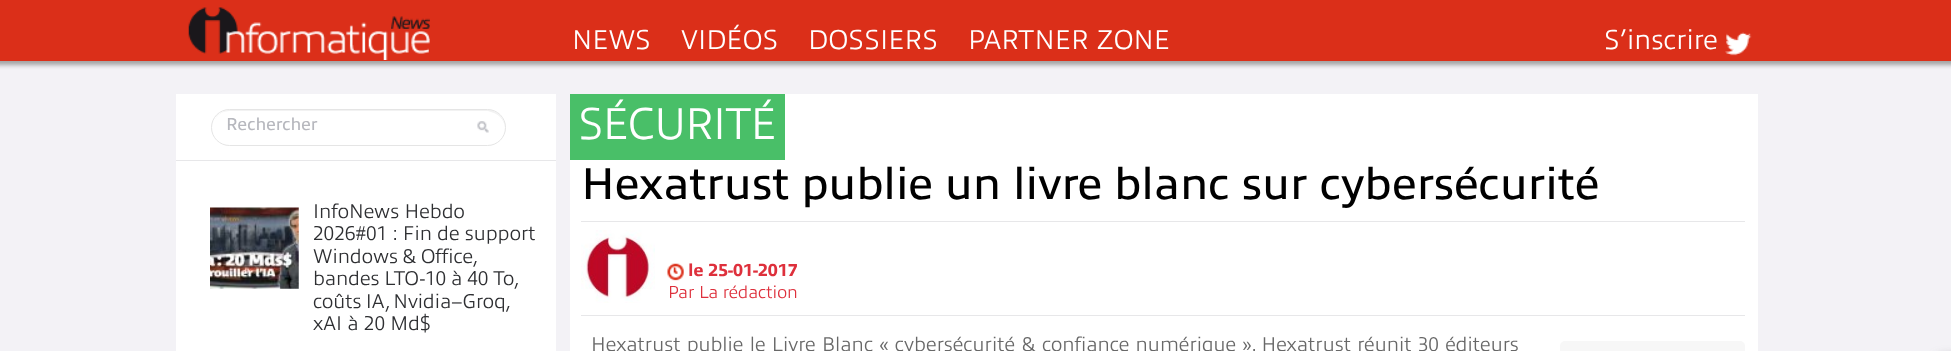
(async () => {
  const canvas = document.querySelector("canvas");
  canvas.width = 1951;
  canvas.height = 351;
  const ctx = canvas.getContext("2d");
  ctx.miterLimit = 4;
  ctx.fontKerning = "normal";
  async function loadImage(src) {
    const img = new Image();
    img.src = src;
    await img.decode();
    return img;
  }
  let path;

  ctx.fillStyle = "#f3f2f6";
  ctx.fillRect(0, 0, 1951, 351);
  ctx.fillStyle = "#a3a3a4";
  ctx.filter = "blur(2px)";
  ctx.beginPath();
  ctx.rect(-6, -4, 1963, 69);
  ctx.fill();
  ctx.filter = "none";
  ctx.fillStyle = "#db2f19";
  ctx.fillRect(0, 0, 1951, 61);
  ctx.drawImage(await loadImage("img/1.png"), 188, 7, 242, 53);
  ctx.drawImage(await loadImage("img/2.png"), 1725, 32, 27, 24);
  ctx.fillStyle = "#ffffff";
  ctx.fillRect(176, 94, 380, 257);
  ctx.fillStyle = "#e7e7e9";
  ctx.fillRect(176, 160, 380, 1);
  ctx.fillStyle = "#f2f2f2";
  path = new Path2D("M230 111H488L494 113C501 116 505 122 505 129V128C505 118 497 110 488 110H230C223 110 217 114 214 121C217 115 222 111 230 111Z");
  ctx.fill(path);
  ctx.beginPath();
  ctx.roundRect(211.5, 109.5, 294, 36, 18);
  ctx.strokeStyle = "#e5e5e5";
  ctx.stroke();
  ctx.drawImage(await loadImage("img/3.png"), 477, 121, 12, 12);
  ctx.drawImage(await loadImage("img/4.png"), 210, 207, 89, 82);
  for (const [x, y, w, h, color] of [
    [570, 94, 1188, 257, "#ffffff"],
    [570, 94, 215, 66, "#49bf68"],
    [581, 221, 1164, 1, "#e7e7e9"],
    [581, 315, 1164, 1, "#e7e7e9"],
  ]) {
    ctx.fillStyle = color;
    ctx.fillRect(x, y, w, h);
  }
  ctx.drawImage(await loadImage("img/5.png"), 581, 230, 74, 73);
  ctx.drawImage(await loadImage("img/6.png"), 667, 263, 17, 18);
  ctx.fillStyle = "#f7f7f7";
  ctx.beginPath();
  ctx.roundRect(1560, 341, 185, 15, 5);
  ctx.fill();
  ctx.fillStyle = "#666666";
  ctx.filter = "blur(6px)";
  ctx.beginPath();
  ctx.rect(1939, 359, 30, 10);
  ctx.fill();
  ctx.filter = "none";
  ctx.font = "300 27.5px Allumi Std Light";
  ctx.fillStyle = "#ffffff";
  for (const [text, x, y] of [
    ["NEWS", 572, 49],
    ["VIDÉOS", 681, 49],
    ["DOSSIERS", 808, 49],
    ["PARTNER ZONE", 968, 49],
    ["S’inscrire", 1604, 49],
  ]) {
    ctx.fillText(text, x, y);
  }
  ctx.font = "17.5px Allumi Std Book";
  ctx.fillStyle = "#b7b8be";
  ctx.fillText("Rechercher", 226, 130);
  ctx.font = "300 20px Allumi Std Light";
  ctx.fillStyle = "#2e2f32";
  ctx.fillText("InfoNews Hebdo", 313, 218);
  ctx.fillText("2026#01 : Fin de support", 313, 240);
  ctx.wordSpacing = "-1px";
  ctx.fillText("Windows & Office,", 313, 263);
  ctx.wordSpacing = "-0.5px";
  ctx.fillText("bandes LTO-10 à 40 To,", 313, 285);
  ctx.wordSpacing = "-1px";
  ctx.fillText("coûts IA, Nvidia–Groq,", 313, 308);
  ctx.wordSpacing = "0px";
  ctx.fillText("xAI à 20 Md$", 313, 330);
  ctx.letterSpacing = "-1.25px";
  ctx.font = "300 45px Allumi Std Light";
  ctx.fillStyle = "#ffffff";
  ctx.fillText("SÉCURITÉ", 578, 139);
  ctx.letterSpacing = "0px";
  ctx.font = "45px Allumi Std Book";
  ctx.fillStyle = "#000000";
  ctx.fillText("Hexatrust publie un livre blanc sur cybersécurité", 581, 199);
  ctx.font = "800 17.5px Allumi Std Book";
  ctx.fillStyle = "#de303c";
  ctx.fillText("le", 688, 276);
  ctx.fillText("25-01-2017", 708, 276);
  ctx.font = "300 17.5px Allumi Std Light";
  ctx.fillText("Par", 668, 298);
  ctx.fillText("La rédaction", 699, 298);
  ctx.wordSpacing = "1px";
  ctx.font = "300 20px Allumi Std Light";
  ctx.fillStyle = "#686868";
  ctx.fillText("Hexatrust publie le Livre Blanc « cybersécurité & confiance numérique ». Hexatrust réunit 30 éditeurs", 591, 351);
})();
